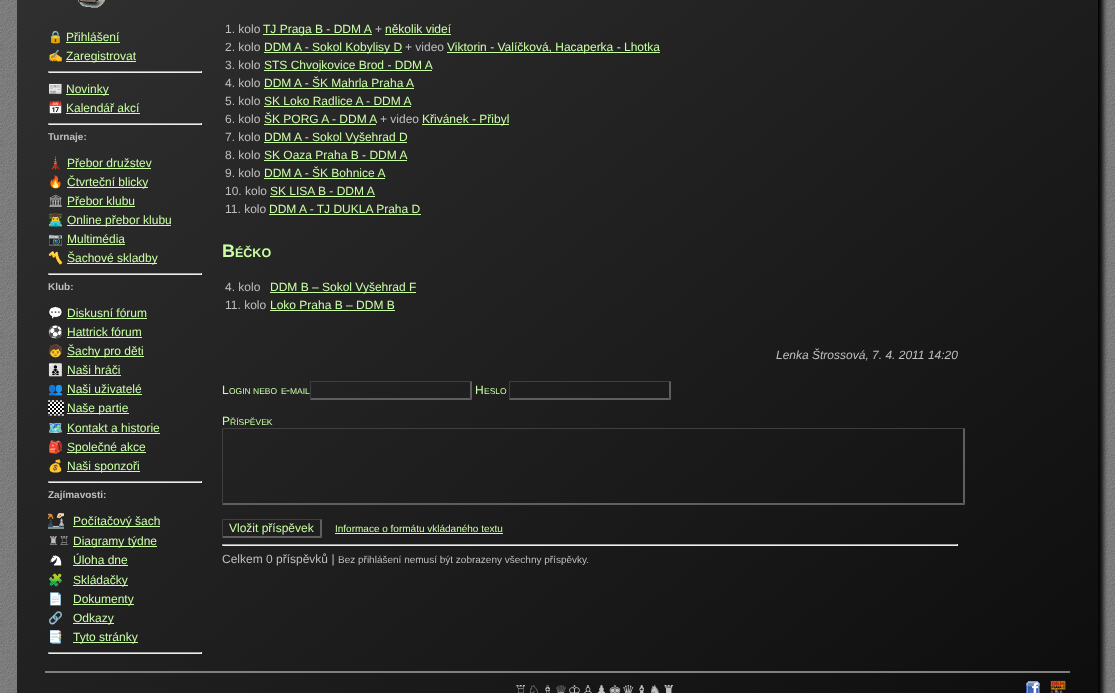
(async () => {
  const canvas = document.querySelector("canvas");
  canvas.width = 1115;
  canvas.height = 693;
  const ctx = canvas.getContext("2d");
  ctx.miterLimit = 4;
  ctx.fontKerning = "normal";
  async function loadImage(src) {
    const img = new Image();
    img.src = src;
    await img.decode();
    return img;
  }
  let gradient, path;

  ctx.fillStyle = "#ffffff";
  ctx.fillRect(0, 0, 1115, 693);
  ctx.drawImage(await loadImage("img/1.png"), 0, 0, 1115, 693);
  ctx.fillStyle = "#000000";
  ctx.filter = "blur(2.5px)";
  ctx.beginPath();
  ctx.roundRect(22, -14, 1081, 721, 6);
  ctx.fill();
  ctx.filter = "none";
  gradient = ctx.createLinearGradient(121, -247, 994, 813);
  gradient.addColorStop(0, "#333333");
  gradient.addColorStop(1, "#0d0d0d");
  ctx.fillStyle = gradient;
  ctx.fillRect(17, 0, 1081, 693);
  ctx.drawImage(await loadImage("img/2.png"), 78, 0, 27, 8);
  for (const [x, y, w, h, color] of [
    [66, 42, 54, 1, "#c9ffa4"],
    [66, 61, 70, 1, "#c9ffa4"],
    [48, 71, 154, 1, "#9f9f9f"],
    [201, 71, 1, 2, "#eeeeee"],
    [48, 72, 154, 1, "#eeeeee"],
    [48, 71, 1, 2, "#9f9f9f"],
    [66, 94, 43, 1, "#c9ffa4"],
    [66, 113, 74, 1, "#c9ffa4"],
    [48, 123, 154, 1, "#9f9f9f"],
    [201, 123, 1, 2, "#eeeeee"],
    [48, 124, 154, 1, "#eeeeee"],
    [48, 123, 1, 2, "#9f9f9f"],
    [67, 168, 84, 1, "#c9ffa4"],
    [67, 187, 81, 1, "#c9ffa4"],
    [67, 206, 68, 1, "#c9ffa4"],
    [67, 225, 104, 1, "#c9ffa4"],
    [67, 244, 58, 1, "#c9ffa4"],
    [67, 263, 90, 1, "#c9ffa4"],
    [48, 273, 154, 1, "#9f9f9f"],
    [201, 273, 1, 2, "#eeeeee"],
    [48, 274, 154, 1, "#eeeeee"],
    [48, 273, 1, 2, "#9f9f9f"],
    [67, 318, 80, 1, "#c9ffa4"],
    [67, 337, 75, 1, "#c9ffa4"],
    [67, 356, 77, 1, "#c9ffa4"],
    [67, 375, 54, 1, "#c9ffa4"],
    [67, 394, 75, 1, "#c9ffa4"],
  ]) {
    ctx.fillStyle = color;
    ctx.fillRect(x, y, w, h);
  }
  ctx.drawImage(await loadImage("img/3.png"), 48, 400, 16, 16);
  for (const [x, y, w, h, color] of [
    [67, 413, 62, 1, "#c9ffa4"],
    [67, 433, 93, 1, "#c9ffa4"],
    [67, 452, 79, 1, "#c9ffa4"],
    [67, 471, 73, 1, "#c9ffa4"],
    [48, 481, 154, 1, "#9f9f9f"],
    [201, 481, 1, 2, "#eeeeee"],
    [48, 482, 154, 1, "#eeeeee"],
    [48, 481, 1, 2, "#9f9f9f"],
  ]) {
    ctx.fillStyle = color;
    ctx.fillRect(x, y, w, h);
  }
  ctx.drawImage(await loadImage("img/4.png"), 48, 513, 16, 16);
  ctx.fillStyle = "#c9ffa4";
  ctx.fillRect(73, 526, 87, 1);
  ctx.fillRect(73, 546, 84, 1);
  ctx.drawImage(await loadImage("img/5.png"), 50, 554, 12, 13);
  for (const [x, y, w, h, color] of [
    [73, 565, 55, 1, "#c9ffa4"],
    [73, 585, 55, 1, "#c9ffa4"],
    [73, 604, 61, 1, "#c9ffa4"],
    [73, 623, 41, 1, "#c9ffa4"],
    [73, 642, 65, 1, "#c9ffa4"],
    [48, 652, 154, 1, "#9f9f9f"],
    [201, 652, 1, 2, "#eeeeee"],
    [48, 653, 154, 1, "#eeeeee"],
    [48, 652, 1, 2, "#9f9f9f"],
    [263, 34, 109, 1, "#c9ffa4"],
    [385, 34, 66, 1, "#c9ffa4"],
    [264, 52, 138, 1, "#c9ffa4"],
    [447, 52, 213, 1, "#c9ffa4"],
    [264, 70, 168, 1, "#c9ffa4"],
    [264, 88, 150, 1, "#c9ffa4"],
    [264, 106, 147, 1, "#c9ffa4"],
    [264, 124, 112, 1, "#c9ffa4"],
    [422, 124, 87, 1, "#c9ffa4"],
    [264, 142, 143, 1, "#c9ffa4"],
    [264, 160, 143, 1, "#c9ffa4"],
    [264, 178, 121, 1, "#c9ffa4"],
    [270, 196, 105, 1, "#c9ffa4"],
    [269, 214, 152, 1, "#c9ffa4"],
    [270, 292, 146, 1, "#c9ffa4"],
    [270, 310, 125, 1, "#c9ffa4"],
  ]) {
    ctx.fillStyle = color;
    ctx.fillRect(x, y, w, h);
  }
  ctx.fillStyle = "#3f3f3f";
  path = new Path2D("M310 381H472L470 382H311Z");
  ctx.fill(path);
  ctx.fillStyle = "#5f5f5f";
  path = new Path2D("M472 381V400L470 398V382Z");
  ctx.fill(path);
  path = new Path2D("M472 400H310L311 398H470Z");
  ctx.fill(path);
  ctx.fillStyle = "#3f3f3f";
  path = new Path2D("M310 400V381L311 382V398Z");
  ctx.fill(path);
  path = new Path2D("M509 381H671L669 382H510Z");
  ctx.fill(path);
  ctx.fillStyle = "#5f5f5f";
  path = new Path2D("M671 381V400L669 398V382Z");
  ctx.fill(path);
  path = new Path2D("M671 400H509L510 398H669Z");
  ctx.fill(path);
  ctx.fillStyle = "#3f3f3f";
  path = new Path2D("M509 400V381L510 382V398Z");
  ctx.fill(path);
  path = new Path2D("M222 428H965L963 429H223Z");
  ctx.fill(path);
  ctx.fillStyle = "#5f5f5f";
  path = new Path2D("M965 428V505L963 503V429Z");
  ctx.fill(path);
  path = new Path2D("M965 505H222L223 503H963Z");
  ctx.fill(path);
  ctx.fillStyle = "#3f3f3f";
  path = new Path2D("M222 505V428L223 429V503Z");
  ctx.fill(path);
  path = new Path2D("M222 519H322L320 520H223Z");
  ctx.fill(path);
  ctx.fillStyle = "#5f5f5f";
  path = new Path2D("M322 519V538L320 536V520Z");
  ctx.fill(path);
  path = new Path2D("M322 538H222L223 536H320Z");
  ctx.fill(path);
  ctx.fillStyle = "#3f3f3f";
  path = new Path2D("M222 538V519L223 520V536Z");
  ctx.fill(path);
  for (const [x, y, w, h, color] of [
    [335, 533, 168, 1, "#c9ffa4"],
    [222, 544, 736, 1, "#9f9f9f"],
    [957, 544, 1, 2, "#eeeeee"],
    [222, 545, 736, 1, "#eeeeee"],
    [222, 544, 1, 2, "#9f9f9f"],
    [45, 671, 1025, 2, "#808080"],
  ]) {
    ctx.fillStyle = color;
    ctx.fillRect(x, y, w, h);
  }
  ctx.drawImage(await loadImage("img/6.png"), 1026, 681, 14, 12);
  ctx.drawImage(await loadImage("img/7.png"), 1050, 680, 16, 13);
  ctx.font = "12px Noto Color Emoji";
  ctx.fillStyle = "#bfbfbf";
  ctx.fillText("🔒", 48, 41);
  ctx.font = "12px Liberation Sans";
  ctx.fillStyle = "#c9ffa4";
  ctx.fillText("Přihlášení", 66, 41);
  ctx.font = "12px Noto Color Emoji";
  ctx.fillStyle = "#bfbfbf";
  ctx.fillText("✍️‍", 48, 60);
  ctx.font = "12px Liberation Sans";
  ctx.fillStyle = "#c9ffa4";
  ctx.fillText("Zaregistrovat", 66, 60);
  ctx.font = "12px Noto Color Emoji";
  ctx.fillStyle = "#bfbfbf";
  ctx.fillText("📰", 48, 93);
  ctx.font = "12px Liberation Sans";
  ctx.fillStyle = "#c9ffa4";
  ctx.fillText("Novinky", 66, 93);
  ctx.font = "12px Noto Color Emoji";
  ctx.fillStyle = "#bfbfbf";
  ctx.fillText("📅", 48, 112);
  ctx.font = "12px Liberation Sans";
  ctx.fillStyle = "#c9ffa4";
  ctx.fillText("Kalendář akcí", 66, 112);
  ctx.font = "bold 10px Liberation Sans";
  ctx.fillStyle = "#bfbfbf";
  ctx.fillText("Turnaje:", 48, 140);
  ctx.font = "12px Noto Color Emoji";
  ctx.fillText("🗼", 48, 167);
  ctx.font = "12px Liberation Sans";
  ctx.fillStyle = "#c9ffa4";
  ctx.fillText("Přebor družstev", 67, 167);
  ctx.font = "12px Noto Color Emoji";
  ctx.fillStyle = "#bfbfbf";
  ctx.fillText("🔥", 48, 186);
  ctx.font = "12px Liberation Sans";
  ctx.fillStyle = "#c9ffa4";
  ctx.fillText("Čtvrteční blicky", 67, 186);
  ctx.font = "12px Noto Emoji";
  ctx.fillStyle = "#bfbfbf";
  ctx.fillText("🏛", 48, 205);
  ctx.font = "12px Liberation Sans";
  ctx.fillStyle = "#c9ffa4";
  ctx.fillText("Přebor klubu", 67, 205);
  ctx.font = "12px Noto Color Emoji";
  ctx.fillStyle = "#bfbfbf";
  ctx.fillText("👨‍💻", 48, 224);
  ctx.font = "12px Liberation Sans";
  ctx.fillStyle = "#c9ffa4";
  ctx.fillText("Online přebor klubu", 67, 224);
  ctx.font = "12px Noto Color Emoji";
  ctx.fillStyle = "#bfbfbf";
  ctx.fillText("📷", 48, 243);
  ctx.font = "12px Liberation Sans";
  ctx.fillStyle = "#c9ffa4";
  ctx.fillText("Multimédia", 67, 243);
  ctx.font = "12px Noto Color Emoji";
  ctx.fillStyle = "#bfbfbf";
  ctx.fillText("〽️", 48, 262);
  ctx.font = "12px Liberation Sans";
  ctx.fillStyle = "#c9ffa4";
  ctx.fillText("Šachové skladby", 67, 262);
  ctx.font = "bold 10px Liberation Sans";
  ctx.fillStyle = "#bfbfbf";
  ctx.fillText("Klub:", 48, 290);
  ctx.font = "12px Noto Color Emoji";
  ctx.fillText("💬", 48, 317);
  ctx.font = "12px Liberation Sans";
  ctx.fillStyle = "#c9ffa4";
  ctx.fillText("Diskusní fórum", 67, 317);
  ctx.font = "12px Noto Color Emoji";
  ctx.fillStyle = "#bfbfbf";
  ctx.fillText("⚽", 48, 336);
  ctx.font = "12px Liberation Sans";
  ctx.fillStyle = "#c9ffa4";
  ctx.fillText("Hattrick fórum", 67, 336);
  ctx.font = "12px Noto Color Emoji";
  ctx.fillStyle = "#bfbfbf";
  ctx.fillText("🧒", 48, 355);
  ctx.font = "12px Liberation Sans";
  ctx.fillStyle = "#c9ffa4";
  ctx.fillText("Šachy pro děti", 67, 355);
  ctx.font = "12px Noto Color Emoji";
  ctx.fillStyle = "#bfbfbf";
  ctx.fillText("👨‍👦‍👦", 48, 374);
  ctx.font = "12px Liberation Sans";
  ctx.fillStyle = "#c9ffa4";
  ctx.fillText("Naši hráči", 67, 374);
  ctx.font = "12px Noto Color Emoji";
  ctx.fillStyle = "#bfbfbf";
  ctx.fillText("👥️", 48, 393);
  ctx.font = "12px Liberation Sans";
  ctx.fillStyle = "#c9ffa4";
  ctx.fillText("Naši uživatelé", 67, 393);
  ctx.fillText("Naše partie", 67, 412);
  ctx.font = "12px Noto Color Emoji";
  ctx.fillStyle = "#bfbfbf";
  ctx.fillText("🗺️", 48, 432);
  ctx.font = "12px Liberation Sans";
  ctx.fillStyle = "#c9ffa4";
  ctx.fillText("Kontakt a historie", 67, 432);
  ctx.font = "12px Noto Color Emoji";
  ctx.fillStyle = "#bfbfbf";
  ctx.fillText("🎒", 48, 451);
  ctx.font = "12px Liberation Sans";
  ctx.fillStyle = "#c9ffa4";
  ctx.fillText("Společné akce", 67, 451);
  ctx.font = "12px Noto Color Emoji";
  ctx.fillStyle = "#bfbfbf";
  ctx.fillText("💰", 48, 470);
  ctx.font = "12px Liberation Sans";
  ctx.fillStyle = "#c9ffa4";
  ctx.fillText("Naši sponzoři", 67, 470);
  ctx.font = "bold 10px Liberation Sans";
  ctx.fillStyle = "#bfbfbf";
  ctx.fillText("Zajímavosti:", 48, 498);
  ctx.font = "12px Liberation Sans";
  ctx.fillStyle = "#c9ffa4";
  ctx.fillText("Počítačový šach", 73, 525);
  ctx.font = "12px DejaVu Sans";
  ctx.fillStyle = "#bfbfbf";
  ctx.fillText("♜♖", 48, 545);
  ctx.font = "12px Liberation Sans";
  ctx.fillStyle = "#c9ffa4";
  ctx.fillText("Diagramy týdne", 73, 545);
  ctx.fillText("Úloha dne", 73, 564);
  ctx.font = "12px Noto Color Emoji";
  ctx.fillStyle = "#bfbfbf";
  ctx.fillText("🧩", 48, 584);
  ctx.font = "12px Liberation Sans";
  ctx.fillStyle = "#c9ffa4";
  ctx.fillText("Skládačky", 73, 584);
  ctx.font = "12px Noto Color Emoji";
  ctx.fillStyle = "#bfbfbf";
  ctx.fillText("📄", 48, 603);
  ctx.font = "12px Liberation Sans";
  ctx.fillStyle = "#c9ffa4";
  ctx.fillText("Dokumenty", 73, 603);
  ctx.font = "12px Noto Color Emoji";
  ctx.fillStyle = "#bfbfbf";
  ctx.fillText("🔗", 48, 622);
  ctx.font = "12px Liberation Sans";
  ctx.fillStyle = "#c9ffa4";
  ctx.fillText("Odkazy", 73, 622);
  ctx.font = "12px Noto Color Emoji";
  ctx.fillStyle = "#bfbfbf";
  ctx.fillText("📑", 48, 641);
  ctx.font = "12px Liberation Sans";
  ctx.fillStyle = "#c9ffa4";
  ctx.fillText("Tyto stránky", 73, 641);
  ctx.fillStyle = "#bfbfbf";
  ctx.fillText("1. kolo", 225, 33);
  ctx.fillStyle = "#c9ffa4";
  ctx.fillText("TJ Praga B - DDM A", 263, 33);
  ctx.fillStyle = "#bfbfbf";
  ctx.fillText("+", 375, 33);
  ctx.fillStyle = "#c9ffa4";
  ctx.fillText("několik videí", 385, 33);
  ctx.fillStyle = "#bfbfbf";
  ctx.fillText("2. kolo", 225, 51);
  ctx.fillStyle = "#c9ffa4";
  ctx.fillText("DDM A - Sokol Kobylisy D", 264, 51);
  ctx.fillStyle = "#bfbfbf";
  ctx.fillText("+ video", 405, 51);
  ctx.fillStyle = "#c9ffa4";
  ctx.fillText("Viktorin - Valíčková, Hacaperka - Lhotka", 447, 51);
  ctx.fillStyle = "#bfbfbf";
  ctx.fillText("3. kolo", 225, 69);
  ctx.fillStyle = "#c9ffa4";
  ctx.fillText("STS Chvojkovice Brod - DDM A", 264, 69);
  ctx.fillStyle = "#bfbfbf";
  ctx.fillText("4. kolo", 225, 87);
  ctx.fillStyle = "#c9ffa4";
  ctx.fillText("DDM A - ŠK Mahrla Praha A", 264, 87);
  ctx.fillStyle = "#bfbfbf";
  ctx.fillText("5. kolo", 225, 105);
  ctx.fillStyle = "#c9ffa4";
  ctx.fillText("SK Loko Radlice A - DDM A", 264, 105);
  ctx.fillStyle = "#bfbfbf";
  ctx.fillText("6. kolo", 225, 123);
  ctx.fillStyle = "#c9ffa4";
  ctx.fillText("ŠK PORG A - DDM A", 264, 123);
  ctx.fillStyle = "#bfbfbf";
  ctx.fillText("+ video", 380, 123);
  ctx.fillStyle = "#c9ffa4";
  ctx.fillText("Křivánek - Přibyl", 422, 123);
  ctx.fillStyle = "#bfbfbf";
  ctx.fillText("7. kolo", 225, 141);
  ctx.fillStyle = "#c9ffa4";
  ctx.fillText("DDM A - Sokol Vyšehrad D", 264, 141);
  ctx.fillStyle = "#bfbfbf";
  ctx.fillText("8. kolo", 225, 159);
  ctx.fillStyle = "#c9ffa4";
  ctx.fillText("SK Oaza Praha B - DDM A", 264, 159);
  ctx.fillStyle = "#bfbfbf";
  ctx.fillText("9. kolo", 225, 177);
  ctx.fillStyle = "#c9ffa4";
  ctx.fillText("DDM A - ŠK Bohnice A", 264, 177);
  ctx.fillStyle = "#bfbfbf";
  ctx.fillText("10. kolo", 225, 195);
  ctx.fillStyle = "#c9ffa4";
  ctx.fillText("SK LISA B - DDM A", 270, 195);
  ctx.fillStyle = "#bfbfbf";
  ctx.fillText("11. kolo", 225, 213);
  ctx.fillStyle = "#c9ffa4";
  ctx.fillText("DDM A - TJ DUKLA Praha D", 269, 213);
  ctx.font = "bold 18px Liberation Sans";
  ctx.fillText("B", 222, 257);
  ctx.font = "bold 12.5px Liberation Sans";
  ctx.fillText("ÉČKO", 235, 257);
  ctx.font = "12px Liberation Sans";
  ctx.fillStyle = "#bfbfbf";
  ctx.fillText("4. kolo", 225, 291);
  ctx.fillStyle = "#c9ffa4";
  ctx.fillText("DDM B – Sokol Vyšehrad F", 270, 291);
  ctx.fillStyle = "#bfbfbf";
  ctx.fillText("11. kolo", 225, 309);
  ctx.fillStyle = "#c9ffa4";
  ctx.fillText("Loko Praha B – DDM B", 270, 309);
  ctx.font = "italic 12px Liberation Sans";
  ctx.fillStyle = "#bfbfbf";
  ctx.fillText("Lenka Štrossová, 7. 4. 2011 14:20", 776, 359);
  ctx.font = "12px Liberation Sans";
  ctx.fillStyle = "#c9ffa4";
  ctx.fillText("L", 222, 394);
  ctx.font = "8.5px Liberation Sans";
  for (const [text, x, y] of [
    ["OGIN", 229, 394],
    ["NEBO", 253, 394],
    ["E", 281, 394],
  ]) {
    ctx.fillText(text, x, y);
  }
  ctx.font = "12px Liberation Sans";
  ctx.fillText("-", 286, 394);
  ctx.font = "8.5px Liberation Sans";
  ctx.fillText("MAIL", 290, 394);
  ctx.font = "12px Liberation Sans";
  ctx.fillText("H", 475, 394);
  ctx.font = "8.5px Liberation Sans";
  ctx.fillText("ESLO", 484, 394);
  ctx.font = "12px Liberation Sans";
  ctx.fillText("P", 222, 425);
  ctx.font = "8.5px Liberation Sans";
  ctx.fillText("ŘÍSPĚVEK", 230, 425);
  ctx.font = "12px Liberation Sans";
  ctx.fillText("Vložit příspěvek", 229, 532);
  ctx.font = "10px Liberation Sans";
  ctx.fillText("Informace o formátu vkládaného textu", 335, 532);
  ctx.font = "12px Liberation Sans";
  ctx.fillStyle = "#bfbfbf";
  ctx.fillText("Celkem 0 příspěvků |", 222, 563);
  ctx.font = "10px Liberation Sans";
  ctx.fillText("Bez přihlášení nemusí být zobrazeny všechny příspěvky.", 338, 563);
  ctx.font = "15px DejaVu Sans";
  ctx.fillText("♖♘♗♕♔♙♟♚♛♝♞♜", 514, 696);
})();
